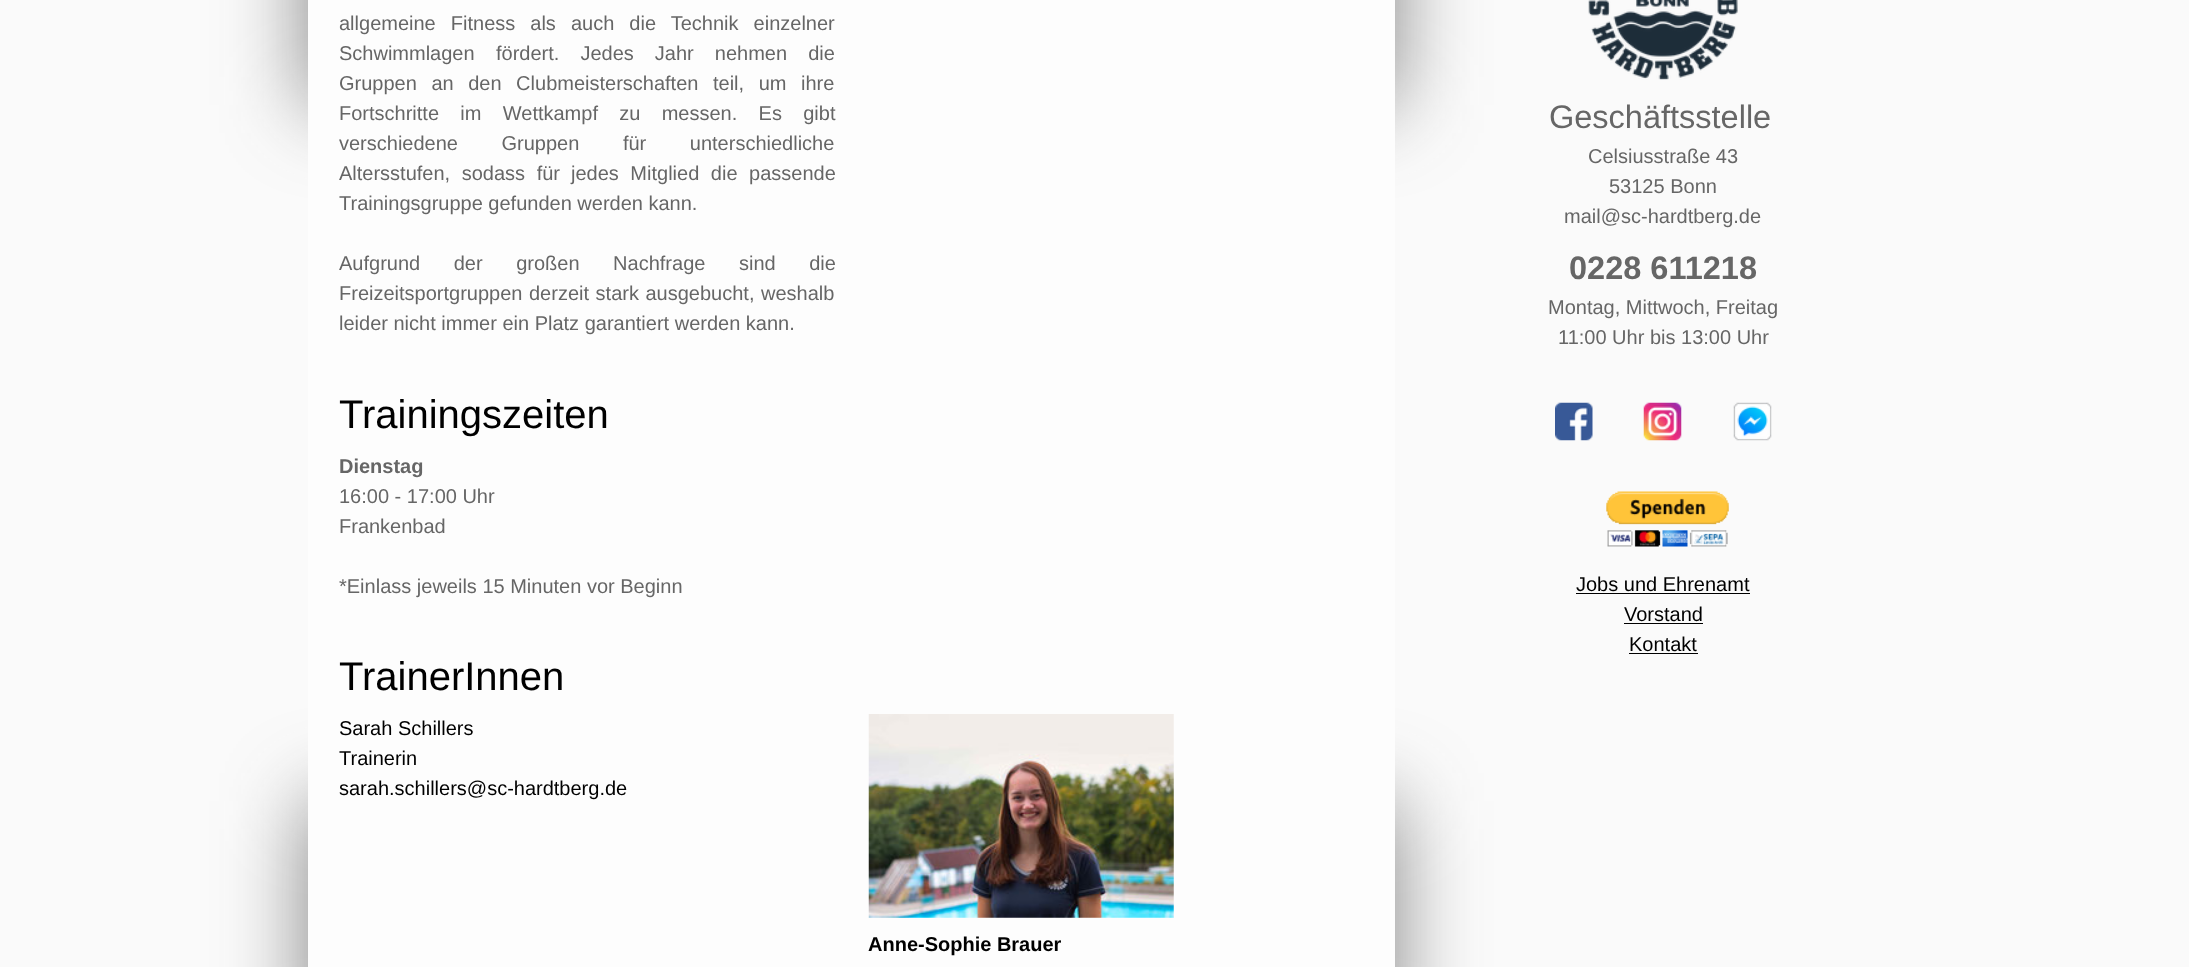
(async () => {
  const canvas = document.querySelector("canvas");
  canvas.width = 2189;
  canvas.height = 967;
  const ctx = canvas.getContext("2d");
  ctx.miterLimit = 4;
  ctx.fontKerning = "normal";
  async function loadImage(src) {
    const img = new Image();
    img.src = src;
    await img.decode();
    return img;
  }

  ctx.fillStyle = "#fafafa";
  ctx.fillRect(0, 0, 2189, 967);
  ctx.fillStyle = "rgba(51, 51, 51, 0.6)";
  ctx.filter = "blur(42.5px)";
  ctx.beginPath();
  ctx.rect(308, -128, 1087, 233);
  ctx.fill();
  ctx.filter = "none";
  ctx.filter = "blur(42.5px)";
  ctx.beginPath();
  ctx.rect(308, 801, 1087, 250);
  ctx.fill();
  ctx.filter = "none";
  ctx.fillStyle = "#fdfdfd";
  ctx.fillRect(308, 0, 1087, 967);
  ctx.drawImage(await loadImage("img/1.png"), 868, 714, 306, 204);
  ctx.drawImage(await loadImage("img/2.png"), 1588, 0, 150, 80);
  ctx.drawImage(await loadImage("img/3.png"), 1555, 402, 38, 39);
  ctx.drawImage(await loadImage("img/4.png"), 1643, 402, 39, 39);
  ctx.drawImage(await loadImage("img/5.png"), 1733, 402, 39, 39);
  ctx.drawImage(await loadImage("img/6.png"), 1606, 491, 123, 56);
  for (const [x, y, w, h, color] of [
    [1576, 593, 174, 1, "#000000"],
    [1624, 623, 79, 1, "#000000"],
    [1629, 653, 69, 1, "#000000"],
  ]) {
    ctx.fillStyle = color;
    ctx.fillRect(x, y, w, h);
  }
  ctx.wordSpacing = "9.5px";
  ctx.font = "20px Liberation Sans";
  ctx.fillStyle = "#666666";
  ctx.fillText("allgemeine Fitness als auch die Technik einzelner", 339, 30);
  ctx.wordSpacing = "0px";
  ctx.fillText("Schwimmlagen", 339, 60);
  ctx.wordSpacing = "15.5px";
  ctx.fillText("fördert. Jedes Jahr nehmen die", 496, 60);
  ctx.wordSpacing = "9px";
  ctx.fillText("Gruppen an den Clubmeisterschaften teil, um ihre", 339, 90);
  ctx.wordSpacing = "15.75px";
  ctx.fillText("Fortschritte im Wettkampf zu messen. Es gibt", 339, 120);
  ctx.wordSpacing = "38px";
  ctx.fillText("verschiedene Gruppen für unterschiedliche", 339, 150);
  ctx.wordSpacing = "6px";
  ctx.fillText("Altersstufen, sodass für", 339, 180);
  ctx.fillText("jedes Mitglied die passende", 571, 180);
  ctx.wordSpacing = "0px";
  ctx.fillText("Trainingsgruppe gefunden werden kann.", 339, 210);
  ctx.wordSpacing = "28px";
  ctx.fillText("Aufgrund der großen Nachfrage sind die", 339, 270);
  ctx.wordSpacing = "1px";
  ctx.fillText("Freizeitsportgruppen derzeit stark ausgebucht, weshalb", 339, 300);
  ctx.wordSpacing = "0px";
  ctx.fillText("leider nicht immer ein Platz garantiert werden kann.", 339, 330);
  ctx.font = "40px Liberation Sans";
  ctx.fillStyle = "#000000";
  ctx.fillText("Trainingszeiten", 339, 428);
  ctx.font = "bold 20px Liberation Sans";
  ctx.fillStyle = "#666666";
  ctx.fillText("Dienstag", 339, 473);
  ctx.font = "20px Liberation Sans";
  for (const [text, x, y] of [
    ["16:00 - 17:00 Uhr", 339, 503],
    ["Frankenbad", 339, 533],
    ["*Einlass jeweils 15 Minuten vor Beginn", 339, 593],
  ]) {
    ctx.fillText(text, x, y);
  }
  ctx.font = "40px Liberation Sans";
  ctx.fillStyle = "#000000";
  ctx.fillText("TrainerInnen", 339, 690);
  ctx.font = "20px Liberation Sans";
  for (const [text, x, y] of [
    ["Sarah Schillers", 339, 735],
    ["Trainerin", 339, 765],
    ["sarah.schillers@sc-hardtberg.de", 339, 795],
  ]) {
    ctx.fillText(text, x, y);
  }
  ctx.font = "bold 20px Liberation Sans";
  ctx.fillText("Anne-Sophie Brauer", 868, 951);
  ctx.font = "32.5px Liberation Sans";
  ctx.fillStyle = "#666666";
  ctx.fillText("Geschäftsstelle", 1549, 128);
  ctx.font = "20px Liberation Sans";
  for (const [text, x, y] of [
    ["Celsiusstraße 43", 1588, 163],
    ["53125 Bonn", 1609, 193],
    ["mail@sc-hardtberg.de", 1564, 223],
  ]) {
    ctx.fillText(text, x, y);
  }
  ctx.font = "bold 32.5px Liberation Sans";
  ctx.fillText("0228 611218", 1569, 279);
  ctx.font = "20px Liberation Sans";
  ctx.fillText("Montag, Mittwoch, Freitag", 1548, 314);
  ctx.fillText("11:00 Uhr bis 13:00 Uhr", 1558, 344);
  ctx.fillStyle = "#000000";
  for (const [text, x, y] of [
    ["Jobs und Ehrenamt", 1576, 591],
    ["Vorstand", 1624, 621],
    ["Kontakt", 1629, 651],
  ]) {
    ctx.fillText(text, x, y);
  }
})();
